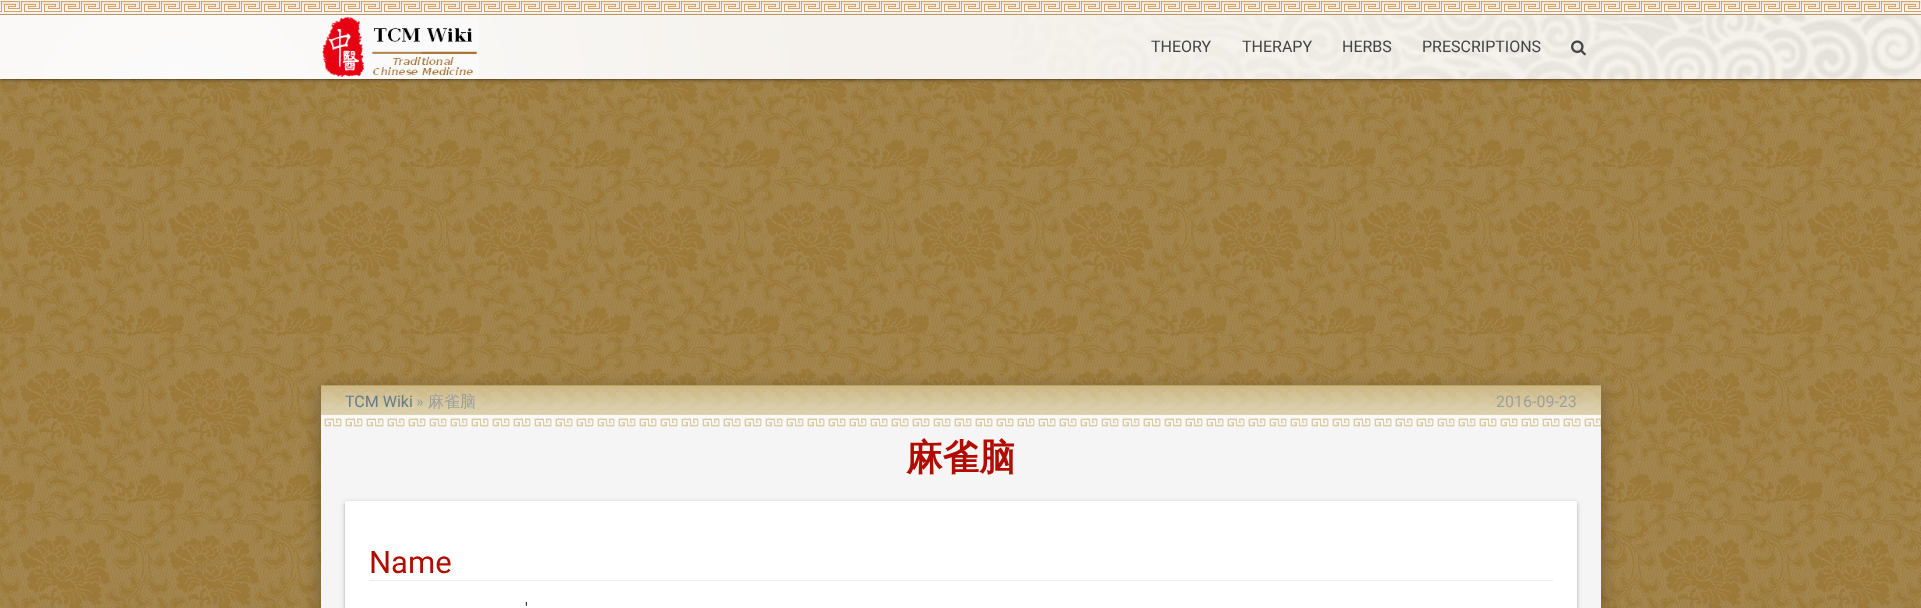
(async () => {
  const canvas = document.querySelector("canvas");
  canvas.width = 1921;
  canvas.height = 608;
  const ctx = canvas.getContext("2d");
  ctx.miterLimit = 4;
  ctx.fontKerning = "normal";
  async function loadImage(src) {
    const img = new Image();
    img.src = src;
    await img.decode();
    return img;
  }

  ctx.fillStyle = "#ffffff";
  ctx.fillRect(0, 0, 1921, 608);
  ctx.drawImage(await loadImage("img/1.png"), 0, 79, 1921, 529);
  ctx.drawImage(await loadImage("img/2.png"), 0, 0, 1921, 15);
  ctx.fillStyle = "rgba(0, 0, 0, 0.2)";
  ctx.filter = "blur(2.5px)";
  ctx.beginPath();
  ctx.rect(0, 16, 1921, 64);
  ctx.fill();
  ctx.filter = "none";
  ctx.fillStyle = "rgba(0, 0, 0, 0.12)";
  ctx.filter = "blur(0.5px)";
  ctx.beginPath();
  ctx.rect(2, 20, 1917, 60);
  ctx.fill();
  ctx.filter = "none";
  ctx.fillStyle = "rgba(0, 0, 0, 0.14)";
  ctx.filter = "blur(1px)";
  ctx.beginPath();
  ctx.rect(0, 17, 1921, 64);
  ctx.fill();
  ctx.filter = "none";
  ctx.drawImage(await loadImage("img/3.png"), 0, 15, 1921, 64);
  ctx.drawImage(await loadImage("img/4.png"), 322, 17, 157, 62);
  ctx.drawImage(await loadImage("img/5.png"), 1571, 40, 15, 16);
  ctx.fillStyle = "rgba(0, 0, 0, 0.12)";
  ctx.filter = "blur(7px)";
  ctx.beginPath();
  ctx.rect(319, 386, 1284, 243);
  ctx.fill();
  ctx.filter = "none";
  ctx.fillStyle = "rgba(0, 0, 0, 0.14)";
  ctx.filter = "blur(8.5px)";
  ctx.beginPath();
  ctx.rect(319, 391, 1284, 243);
  ctx.fill();
  ctx.filter = "none";
  ctx.fillStyle = "#f5f5f5";
  ctx.fillRect(321, 427, 1280, 181);
  ctx.drawImage(await loadImage("img/6.png"), 321, 385, 1280, 42);
  ctx.fillStyle = "rgba(0, 0, 0, 0.2)";
  ctx.filter = "blur(2.5px)";
  ctx.beginPath();
  ctx.roundRect(345, 502, 1232, 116, 2);
  ctx.fill();
  ctx.filter = "none";
  ctx.fillStyle = "rgba(0, 0, 0, 0.14)";
  ctx.filter = "blur(1px)";
  ctx.beginPath();
  ctx.roundRect(345, 503, 1232, 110, 2);
  ctx.fill();
  ctx.filter = "none";
  ctx.fillStyle = "#ffffff";
  ctx.beginPath();
  ctx.roundRect(345, 501, 1232, 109, 2);
  ctx.fill();
  ctx.fillStyle = "#eeeeee";
  ctx.fillRect(369, 580, 1184, 1);
  ctx.font = "16px Roboto";
  ctx.fillStyle = "#444444";
  for (const [text, x, y] of [
    ["THEORY", 1151, 52],
    ["THERAPY", 1242, 52],
    ["HERBS", 1342, 52],
    ["PRESCRIPTIONS", 1422, 52],
  ]) {
    ctx.fillText(text, x, y);
  }
  ctx.fillStyle = "#607d8b";
  ctx.fillText("TCM Wiki", 345, 407);
  ctx.fillStyle = "#9e9e9e";
  ctx.fillText("»", 416, 407);
  ctx.font = "500 16px WenQuanYi Zen Hei";
  ctx.fillText("麻雀脑", 428, 407);
  ctx.font = "16px Roboto";
  ctx.fillText("2016-09-23", 1496, 407);
  ctx.font = "bold 36.5px WenQuanYi Zen Hei";
  ctx.fillStyle = "#b10c01";
  ctx.fillText("麻雀脑", 906, 470);
  ctx.font = "31px Roboto";
  ctx.fillText("Name", 369, 573);
  ctx.font = "16px Roboto";
  ctx.fillStyle = "#212121";
  ctx.fillText("'", 525, 614);
})();
